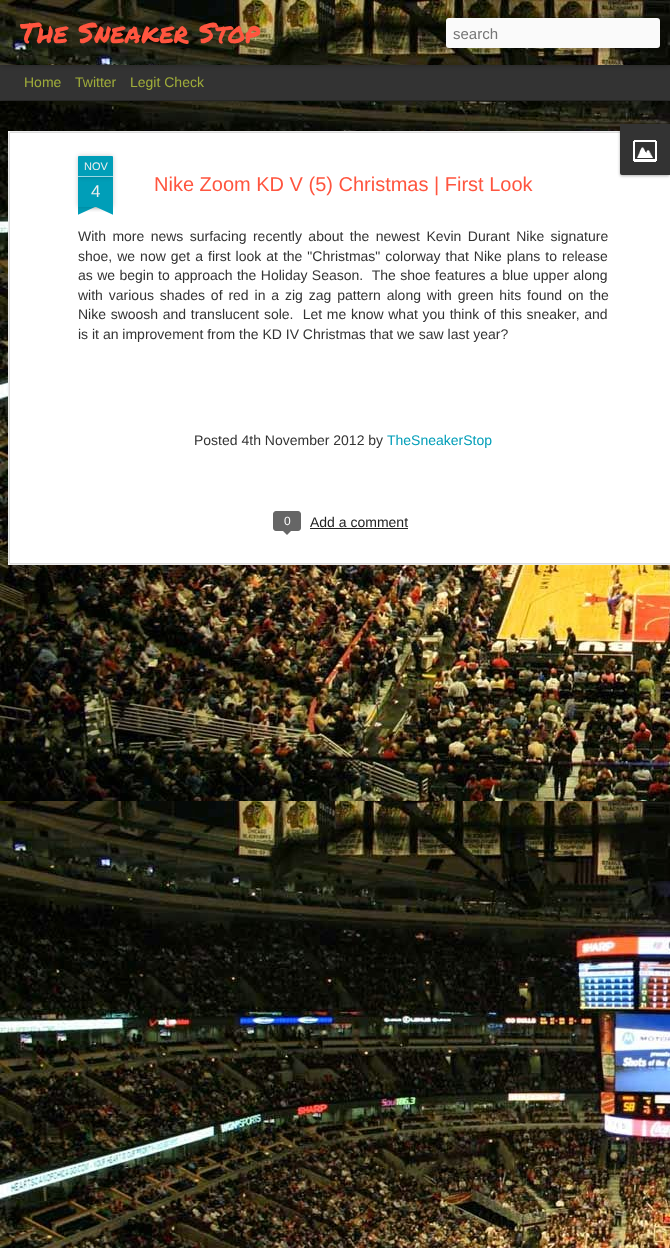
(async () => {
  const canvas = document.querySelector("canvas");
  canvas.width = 670;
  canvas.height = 1248;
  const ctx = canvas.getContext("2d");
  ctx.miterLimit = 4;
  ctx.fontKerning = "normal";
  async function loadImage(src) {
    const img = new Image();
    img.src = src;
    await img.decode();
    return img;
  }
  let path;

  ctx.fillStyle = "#333333";
  ctx.fillRect(0, 0, 670, 1248);
  ctx.drawImage(await loadImage("img/3.png"), 0, 101, 670, 1147);
  ctx.fillStyle = "rgba(0, 0, 0, 0.5)";
  ctx.filter = "blur(4px)";
  ctx.beginPath();
  ctx.rect(0, 65, 670, 35);
  ctx.fill();
  ctx.filter = "none";
  ctx.fillStyle = "#333333";
  ctx.fillRect(0, 65, 670, 35);
  ctx.fillStyle = "rgba(0, 0, 0, 0.3)";
  ctx.filter = "blur(2.5px)";
  ctx.beginPath();
  ctx.rect(0, 0, 670, 65);
  ctx.fill();
  ctx.filter = "none";
  ctx.drawImage(await loadImage("img/1.png"), 0, 0, 670, 65);
  ctx.fillStyle = "#fafafa";
  ctx.beginPath();
  ctx.roundRect(446, 18, 214, 30, 3);
  ctx.fill();
  ctx.fillStyle = "#ffffff";
  ctx.fillRect(8, 131, 662, 434);
  ctx.drawImage(await loadImage("img/4.png"), 8, 131, 662, 434);
  ctx.fillStyle = "rgba(0, 0, 0, 0.3)";
  ctx.filter = "blur(1.5px)";
  ctx.beginPath();
  ctx.roundRect(620, 125, 50, 51, 2);
  ctx.fill();
  ctx.filter = "none";
  ctx.fillStyle = "#333333";
  ctx.beginPath();
  ctx.roundRect(620, 124, 50, 51, [0, 0, 0, 2]);
  ctx.fill();
  ctx.drawImage(await loadImage("img/2.png"), 633, 140, 24, 22);
  ctx.fillStyle = "rgba(0, 0, 0, 0.2)";
  ctx.filter = "blur(2.5px)";
  ctx.beginPath();
  ctx.rect(78, 177, 35, 30);
  ctx.fill();
  ctx.filter = "none";
  ctx.fillStyle = "#009eb8";
  ctx.fillRect(78, 177, 35, 30);
  ctx.fillStyle = "rgba(0, 0, 0, 0.2)";
  ctx.filter = "blur(2.5px)";
  ctx.beginPath();
  ctx.roundRect(78, 156, 35, 21, 1);
  ctx.fill();
  ctx.filter = "none";
  ctx.fillStyle = "#009eb8";
  ctx.beginPath();
  ctx.roundRect(78, 156, 35, 21, [1, 1, 0, 0]);
  ctx.fill();
  ctx.fillStyle = "#99d8e3";
  ctx.fillRect(78, 176, 35, 1);
  ctx.save();
  ctx.beginPath();
  ctx.rect(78, 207, 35, 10);
  ctx.clip();
  ctx.fillStyle = "rgba(0, 0, 0, 0.2)";
  ctx.filter = "blur(2.5px)";
  ctx.beginPath();
  ctx.rect(69, 197, 50, 10);
  ctx.fill();
  ctx.filter = "none";
  ctx.restore();
  ctx.save();
  ctx.beginPath();
  ctx.rect(78, 207, 35, 10);
  ctx.clip();
  ctx.fillStyle = "#009eb8";
  path = new Path2D("M69 208L115 187L119 196L73 217Z");
  ctx.fill(path);
  ctx.restore();
  ctx.save();
  ctx.beginPath();
  ctx.rect(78, 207, 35, 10);
  ctx.clip();
  ctx.fillStyle = "rgba(0, 0, 0, 0.2)";
  ctx.filter = "blur(2.5px)";
  ctx.beginPath();
  ctx.rect(72, 197, 50, 10);
  ctx.fill();
  ctx.filter = "none";
  ctx.restore();
  ctx.save();
  ctx.beginPath();
  ctx.rect(78, 207, 35, 10);
  ctx.clip();
  ctx.fillStyle = "#009eb8";
  path = new Path2D("M76 187L122 208L118 217L72 196Z");
  ctx.fill(path);
  ctx.restore();
  ctx.fillStyle = "#666666";
  ctx.beginPath();
  ctx.roundRect(273.5, 511.5, 27, 19, 2.5);
  ctx.fill();
  ctx.strokeStyle = "#666666";
  ctx.stroke();
  path = new Path2D("M282 530H292L287 535Z");
  ctx.fill(path);
  ctx.fillStyle = "#222222";
  ctx.fillRect(310, 528, 98, 1);
  ctx.font = "28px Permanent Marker";
  ctx.fillStyle = "#ff553f";
  ctx.fillText("The Sneaker Stop", 20, 43);
  ctx.font = "15px Liberation Sans";
  ctx.fillStyle = "#757575";
  ctx.fillText("search", 453, 39);
  ctx.font = "14px Liberation Sans";
  ctx.fillStyle = "#a0ad3a";
  for (const [text, x, y] of [
    ["Home", 24, 87],
    ["Twitter", 75, 87],
    ["Legit Check", 130, 87],
  ]) {
    ctx.fillText(text, x, y);
  }
  ctx.font = "11px Liberation Sans";
  ctx.fillStyle = "#eeeeee";
  ctx.fillText("NOV", 84, 170);
  ctx.font = "17px Liberation Sans";
  ctx.fillText("4", 91, 197);
  ctx.font = "20px Liberation Sans";
  ctx.fillStyle = "#ff553f";
  ctx.fillText("Nike Zoom KD V (5) Christmas | First Look", 154, 191);
  ctx.wordSpacing = "2.5px";
  ctx.font = "14px Liberation Sans";
  ctx.fillStyle = "#333333";
  ctx.fillText("With more news surfacing recently about the newest Kevin Durant Nike signature", 78, 241);
  ctx.wordSpacing = "1.1px";
  ctx.fillText("shoe, we now get a first look at the \"Christmas\" colorway that Nike plans to release", 78, 261);
  ctx.wordSpacing = "0.5px";
  ctx.fillText("as we begin to approach the Holiday Season.  The shoe features a blue upper along", 78, 280);
  ctx.wordSpacing = "2px";
  ctx.fillText("with various shades of red in a zig zag pattern along with green hits found on the", 78, 300);
  ctx.wordSpacing = "0.75px";
  ctx.fillText("Nike swoosh and translucent sole.  Let me know what you think of this sneaker, and", 78, 319);
  ctx.wordSpacing = "0px";
  ctx.fillText("is it an improvement from the KD IV Christmas that we saw last year?", 78, 339);
  ctx.fillText("Posted 4th November 2012 by", 194, 445);
  ctx.fillStyle = "#009eb8";
  ctx.fillText("TheSneakerStop", 387, 445);
  ctx.font = "12px Liberation Sans";
  ctx.fillStyle = "#ffffff";
  ctx.fillText("0", 284, 525);
  ctx.font = "14px Liberation Sans";
  ctx.fillStyle = "#222222";
  ctx.fillText("Add a comment", 310, 527);
})();
